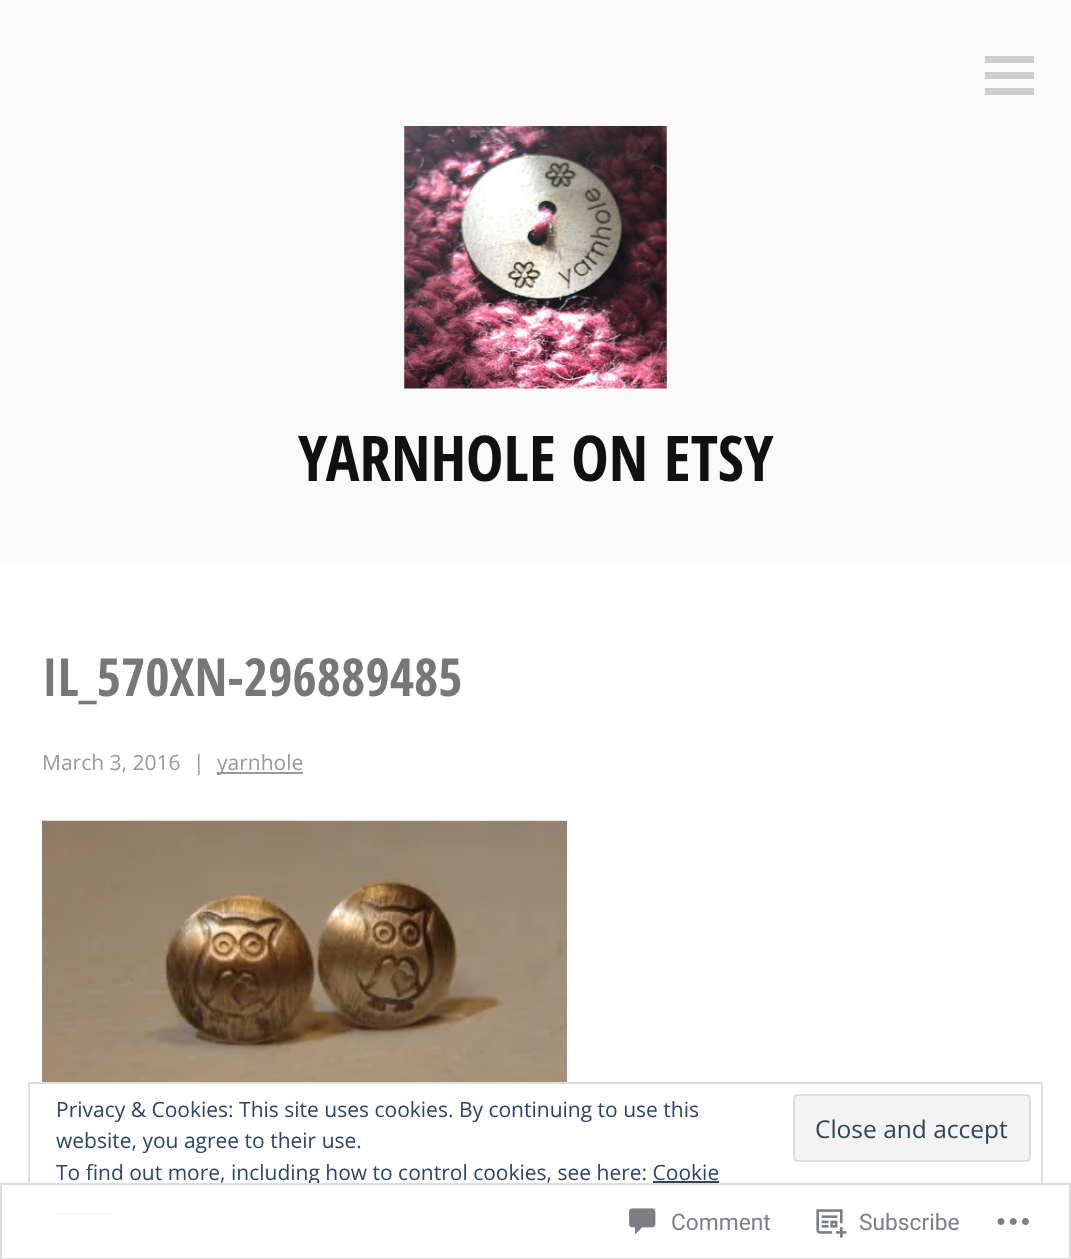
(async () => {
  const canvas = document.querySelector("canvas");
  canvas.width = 1071;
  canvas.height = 1259;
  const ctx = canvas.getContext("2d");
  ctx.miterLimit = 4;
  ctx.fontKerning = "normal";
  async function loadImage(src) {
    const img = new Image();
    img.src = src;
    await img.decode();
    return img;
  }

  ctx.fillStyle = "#ffffff";
  ctx.fillRect(0, 0, 1071, 1259);
  for (const [x, y, w, h, color] of [
    [0, 0, 1071, 562, "#fafafa"],
    [985, 56, 49, 7, "#cccccc"],
    [985, 72, 49, 7, "#cccccc"],
    [985, 88, 49, 7, "#cccccc"],
  ]) {
    ctx.fillStyle = color;
    ctx.fillRect(x, y, w, h);
  }
  ctx.drawImage(await loadImage("img/1.png"), 404, 126, 263, 263);
  ctx.fillStyle = "#999999";
  ctx.fillRect(217, 772, 86, 2);
  ctx.drawImage(await loadImage("img/2.png"), 42, 820, 525, 262);
  ctx.beginPath();
  ctx.arc(535.5, 1205.5, 30.5, 0, Math.PI * 2);
  ctx.strokeStyle = "#cccccc";
  ctx.lineWidth = 2;
  ctx.stroke();
  ctx.fillStyle = "#ffffff";
  ctx.fillRect(504, 1174, 63, 56);
  ctx.strokeStyle = "#dedede";
  ctx.strokeRect(29, 1083, 1013, 148);
  ctx.fillStyle = "#f3f3f3";
  ctx.beginPath();
  ctx.roundRect(794, 1095, 236, 66, 4);
  ctx.fill();
  ctx.stroke();
  ctx.fillStyle = "#2e4467";
  ctx.fillRect(653, 1181, 66, 2);
  ctx.fillRect(56, 1213, 56, 2);
  ctx.font = "bold 63px Open Sans Condensed";
  ctx.fillStyle = "#111111";
  ctx.fillText("YARNHOLE ON ETSY", 298, 481);
  ctx.font = "bold 52.5px Open Sans Condensed";
  ctx.fillStyle = "#777777";
  ctx.fillText("IL_570XN-296889485", 42, 696);
  ctx.font = "21px Open Sans";
  ctx.fillStyle = "#999999";
  for (const [text, x, y] of [
    ["March 3, 2016", 42, 770],
    ["|", 193, 770],
    ["yarnhole", 217, 770],
  ]) {
    ctx.fillText(text, x, y);
  }
  ctx.fillStyle = "#2e4467";
  ctx.fillText("Privacy & Cookies: This site uses cookies. By continuing to use this", 56, 1117);
  ctx.fillText("website, you agree to their use.", 56, 1148);
  ctx.font = "24.5px Open Sans";
  ctx.fillStyle = "#2e4453";
  ctx.fillText("Close and accept", 815, 1138);
  ctx.font = "21px Open Sans";
  ctx.fillStyle = "#2e4467";
  ctx.fillText("To find out more, including how to control cookies, see here: Cookie", 56, 1180);
  ctx.fillStyle = "rgba(255, 255, 255, 0.98)";
  ctx.fillRect(28, 1183, 1015, 54);
  ctx.strokeStyle = "rgba(220, 220, 222, 0.98)";
  ctx.strokeRect(1, 1184, 1069, 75);
  ctx.drawImage(await loadImage("img/3.png"), 629, 1208, 27, 27);
  ctx.font = "22.75px Roboto";
  ctx.fillStyle = "#7b7f84";
  ctx.fillText("Comment", 671, 1230);
  ctx.drawImage(await loadImage("img/4.png"), 816, 1209, 31, 29);
  ctx.fillText("Subscribe", 859, 1230);
  ctx.drawImage(await loadImage("img/5.png"), 997, 1218, 32, 7);
})();
